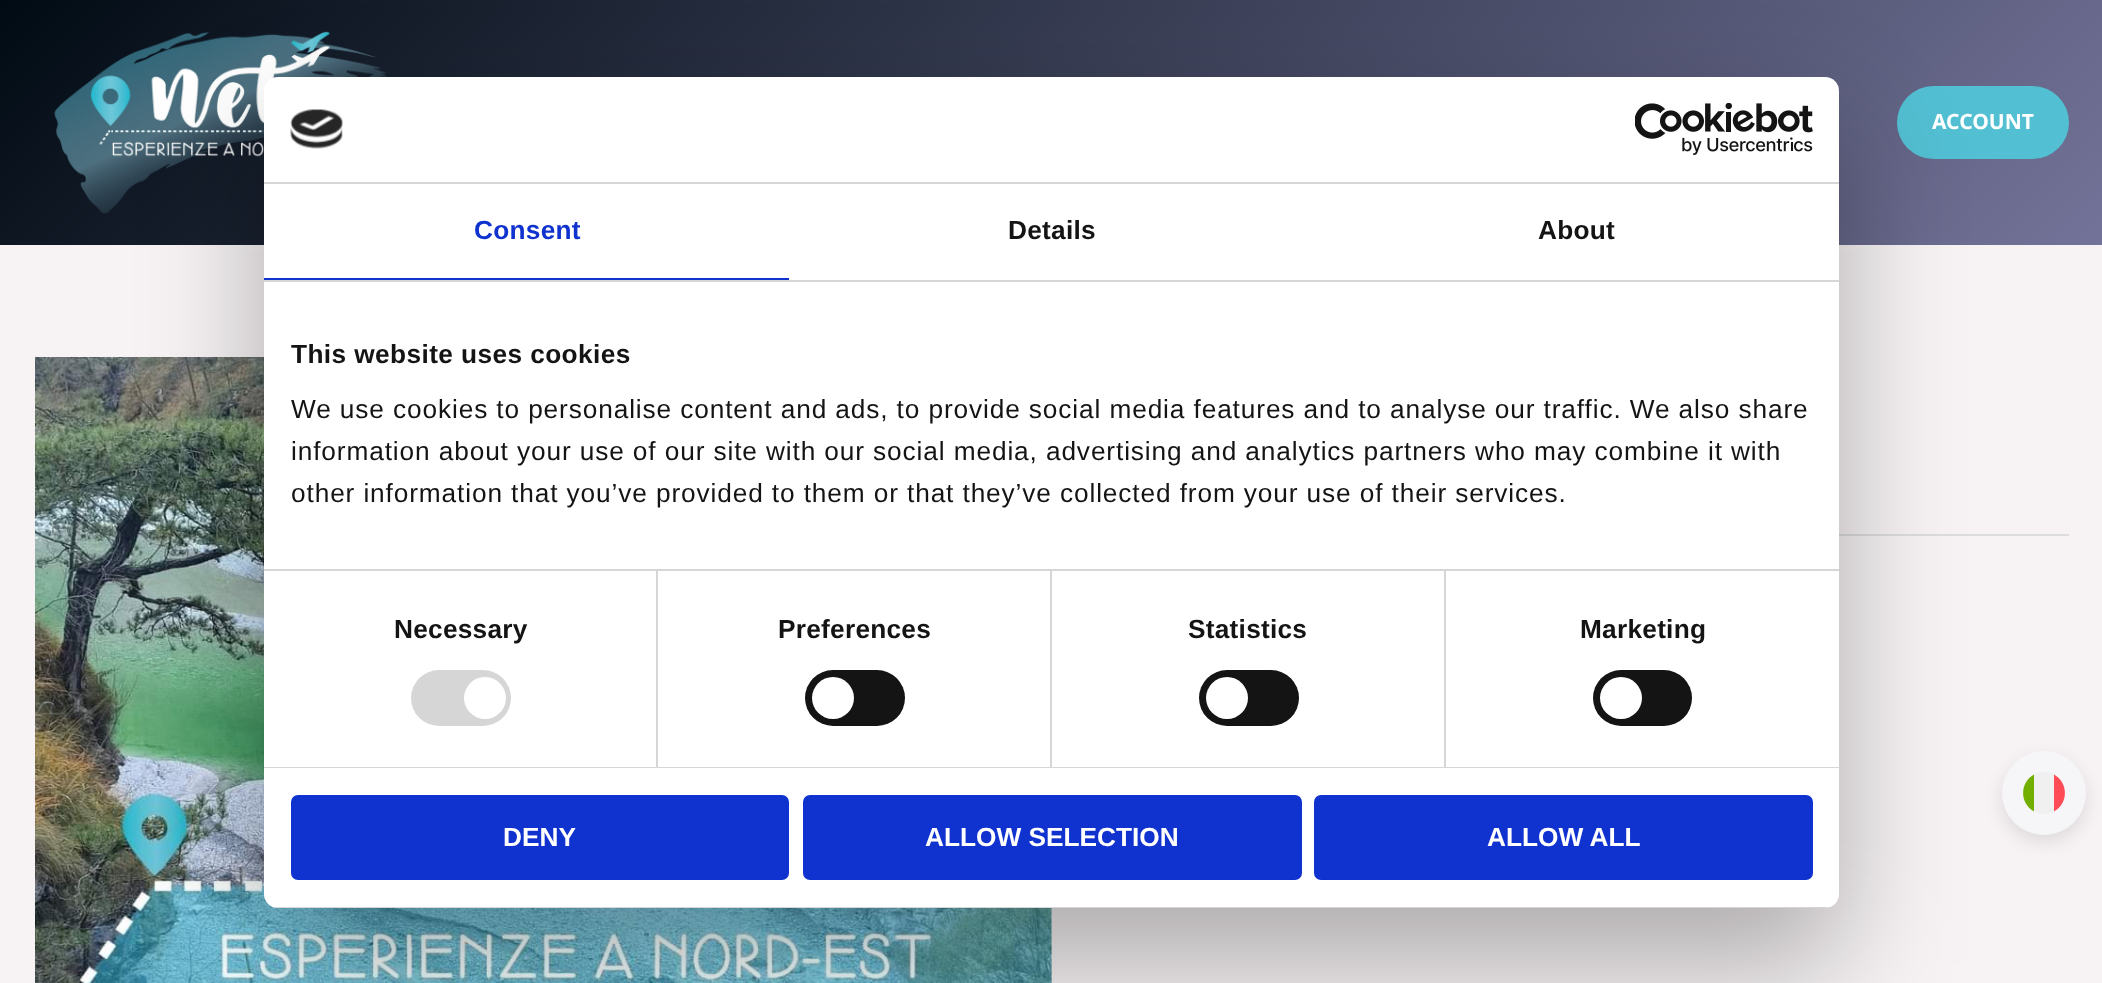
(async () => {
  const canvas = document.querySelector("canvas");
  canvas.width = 2102;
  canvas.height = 983;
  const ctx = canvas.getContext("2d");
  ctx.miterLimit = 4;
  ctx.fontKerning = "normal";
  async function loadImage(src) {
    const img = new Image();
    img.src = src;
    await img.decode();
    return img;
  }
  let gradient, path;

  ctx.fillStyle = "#f7f3f5";
  ctx.fillRect(0, 0, 2102, 983);
  gradient = ctx.createLinearGradient(465, -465, 1639, 710);
  gradient.addColorStop(0, "#010b13");
  gradient.addColorStop(1, "#737399");
  ctx.fillStyle = gradient;
  ctx.fillRect(0, 0, 2102, 245);
  ctx.drawImage(await loadImage("img/1.png"), 54, 31, 333, 183);
  ctx.fillStyle = "#53bfd2";
  ctx.beginPath();
  ctx.roundRect(1897, 86, 172, 73, 36.5);
  ctx.fill();
  ctx.drawImage(await loadImage("img/2.png"), 35, 357, 1017, 626);
  ctx.fillStyle = "#dddddd";
  ctx.fillRect(1839, 534, 230, 2);
  ctx.fillStyle = "rgba(0, 0, 0, 0.1)";
  ctx.filter = "blur(9px)";
  ctx.beginPath();
  ctx.roundRect(2002, 758, 84, 84, 42);
  ctx.fill();
  ctx.filter = "none";
  ctx.fillStyle = "#f6f6f8";
  ctx.beginPath();
  ctx.arc(2044, 793, 42, 0, Math.PI * 2);
  ctx.fill();
  ctx.fillStyle = "rgba(0, 0, 0, 0.3)";
  ctx.filter = "blur(59.5px)";
  ctx.beginPath();
  ctx.roundRect(264, 133, 1575, 831, 14);
  ctx.fill();
  ctx.filter = "none";
  ctx.fillStyle = "#ffffff";
  ctx.beginPath();
  ctx.roundRect(264, 77, 1575, 831, 14);
  ctx.fill();
  ctx.fillStyle = "#d6d6d6";
  ctx.fillRect(264, 182, 1575, 2);
  ctx.drawImage(await loadImage("img/3.png"), 290, 109, 53, 40);
  ctx.drawImage(await loadImage("img/4.png"), 1635, 103, 178, 52);
  for (const [x, y, w, h, color] of [
    [264, 280, 1575, 2, "#d6d6d6"],
    [264, 278, 525, 2, "#1032cf"],
    [264, 569, 1575, 2, "#d6d6d6"],
    [264, 767, 1575, 1, "#d6d6d6"],
    [656, 571, 2, 196, "#d6d6d6"],
  ]) {
    ctx.fillStyle = color;
    ctx.fillRect(x, y, w, h);
  }
  ctx.beginPath();
  ctx.roundRect(411, 670, 100, 56, 28);
  ctx.fill();
  ctx.fillStyle = "#ffffff";
  ctx.beginPath();
  ctx.arc(485, 698, 21, 0, Math.PI * 2);
  ctx.fill();
  ctx.fillStyle = "#d6d6d6";
  ctx.fillRect(1050, 571, 2, 196);
  ctx.fillStyle = "#141414";
  ctx.beginPath();
  ctx.roundRect(805, 670, 100, 56, 28);
  ctx.fill();
  ctx.fillStyle = "#ffffff";
  ctx.beginPath();
  ctx.arc(833, 698, 21, 0, Math.PI * 2);
  ctx.fill();
  ctx.fillStyle = "#d6d6d6";
  ctx.fillRect(1444, 571, 2, 196);
  ctx.fillStyle = "#141414";
  ctx.beginPath();
  ctx.roundRect(1199, 670, 100, 56, 28);
  ctx.fill();
  ctx.fillStyle = "#ffffff";
  ctx.beginPath();
  ctx.arc(1227, 698, 21, 0, Math.PI * 2);
  ctx.fill();
  ctx.fillStyle = "#141414";
  ctx.beginPath();
  ctx.roundRect(1593, 670, 99, 56, 28);
  ctx.fill();
  ctx.fillStyle = "#ffffff";
  ctx.beginPath();
  ctx.arc(1621, 698, 21, 0, Math.PI * 2);
  ctx.fill();
  ctx.save();
  ctx.beginPath();
  ctx.roundRect(264, 77, 1575, 831, 14);
  ctx.clip();
  ctx.fillStyle = "#d6d6d6";
  ctx.fillRect(273, 907, 1557, 1);
  ctx.restore();
  ctx.fillStyle = "#1032cf";
  ctx.beginPath();
  ctx.roundRect(293, 797, 494, 81, 5);
  ctx.fill();
  ctx.strokeStyle = "#1032cf";
  ctx.lineWidth = 4;
  ctx.stroke();
  ctx.beginPath();
  ctx.roundRect(805, 797, 495, 81, 5);
  ctx.fill();
  ctx.stroke();
  ctx.beginPath();
  ctx.roundRect(1316, 797, 495, 81, 5);
  ctx.fill();
  ctx.stroke();
  ctx.save();
  ctx.beginPath();
  ctx.rect(2013, 772, 63, 42);
  ctx.clip();
  ctx.fillStyle = "#f0f0f0";
  path = new Path2D("M2044 772C2065 772 2073 801 2054 811C2050 813 2045 815 2041 814C2016 809 2018 772 2044 772Z");
  ctx.fill(path);
  ctx.restore();
  ctx.fillStyle = "#ff4b55";
  path = new Path2D("M2054 774.5V811.5C2068.5 803.5 2068.5 782.5 2054 774.5Z");
  ctx.fill(path);
  ctx.fillStyle = "#73af00";
  path = new Path2D("M2034 774.5C2019.5 782.5 2019.5 803.5 2034 811.5Z");
  ctx.fill(path);
  ctx.font = "bold 21px Noto Sans";
  ctx.fillStyle = "#ffffff";
  ctx.fillText("ACCOUNT", 1932, 129);
  ctx.letterSpacing = "0.25px";
  ctx.font = "bold 26.25px Liberation Sans";
  ctx.fillStyle = "#1032cf";
  ctx.fillText("Consent", 474, 239);
  ctx.fillStyle = "#141414";
  ctx.fillText("Details", 1008, 239);
  ctx.fillText("About", 1538, 239);
  ctx.letterSpacing = "0.4px";
  ctx.fillText("This website uses cookies", 291, 363);
  ctx.letterSpacing = "0.88px";
  ctx.font = "26.25px Liberation Sans";
  for (const [text, x, y] of [
    ["We use cookies to personalise content and ads, to provide social media features and to analyse our traffic. We also share", 291, 418],
    ["information about your use of our site with our social media, advertising and analytics partners who may combine it with", 291, 460],
    ["other information that you’ve provided to them or that they’ve collected from your use of their services.", 291, 502],
  ]) {
    ctx.fillText(text, x, y);
  }
  ctx.letterSpacing = "0.25px";
  ctx.font = "bold 26.25px Liberation Sans";
  for (const [text, x, y] of [
    ["Necessary", 394, 638],
    ["Preferences", 778, 638],
    ["Statistics", 1188, 638],
    ["Marketing", 1580, 638],
  ]) {
    ctx.fillText(text, x, y);
  }
  ctx.letterSpacing = "0px";
  ctx.fillStyle = "#ffffff";
  for (const [text, x, y] of [
    ["DENY", 503, 846],
    ["ALLOW SELECTION", 925, 846],
    ["ALLOW ALL", 1487, 846],
  ]) {
    ctx.fillText(text, x, y);
  }
})();
